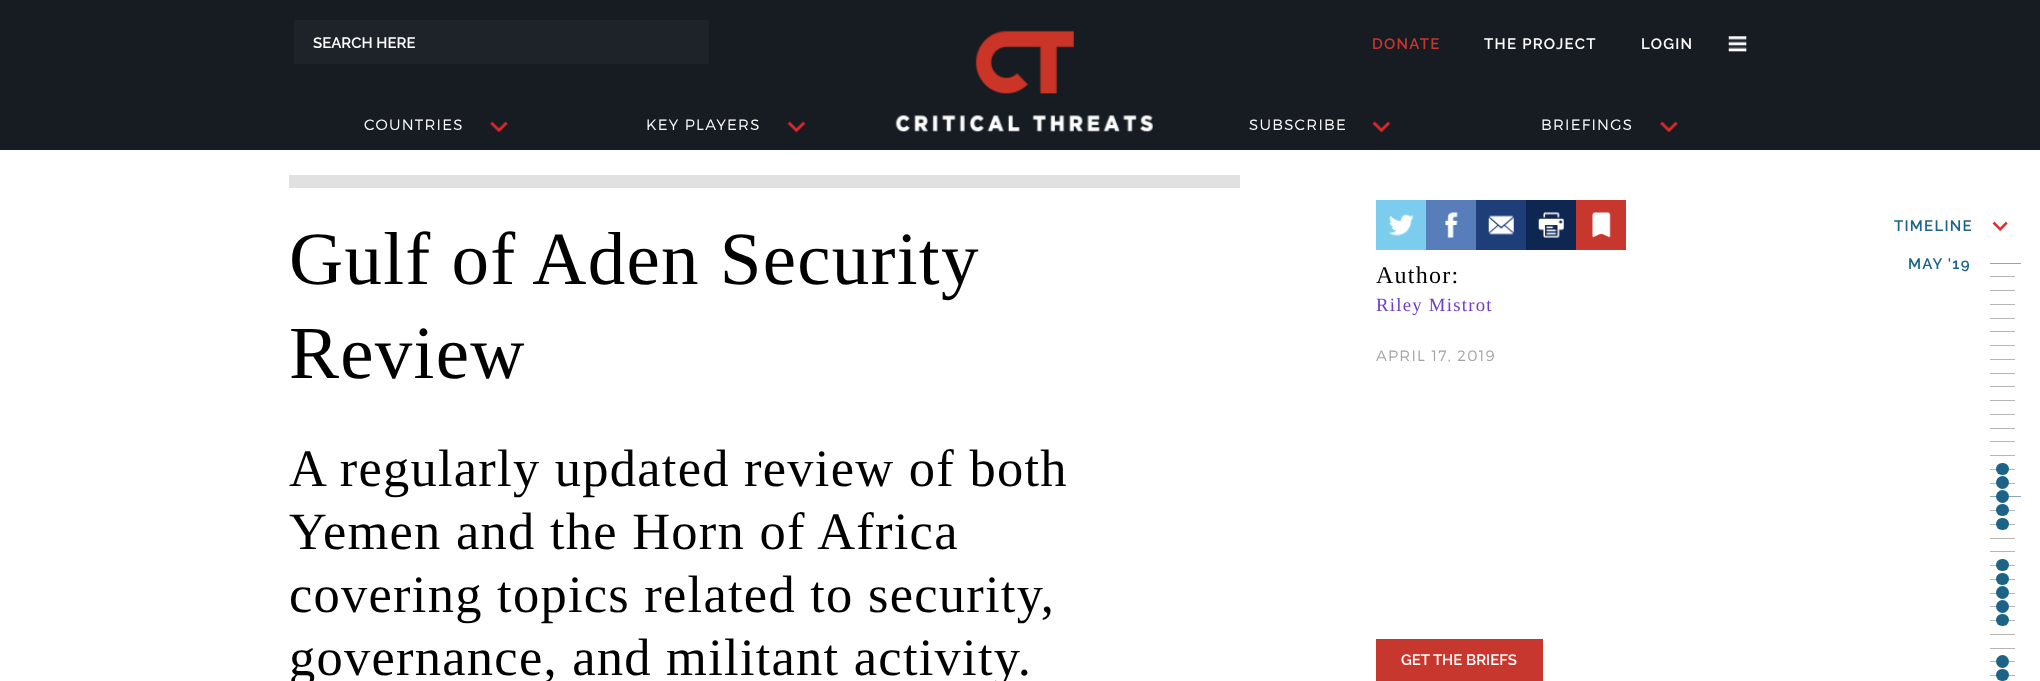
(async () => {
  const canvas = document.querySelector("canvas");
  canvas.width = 2040;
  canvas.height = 681;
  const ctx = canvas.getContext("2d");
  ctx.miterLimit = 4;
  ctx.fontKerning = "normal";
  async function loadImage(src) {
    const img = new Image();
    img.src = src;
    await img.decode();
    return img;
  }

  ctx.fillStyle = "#ffffff";
  ctx.fillRect(0, 0, 2040, 681);
  ctx.fillStyle = "#161c21";
  ctx.fillRect(0, 0, 2040, 150);
  ctx.fillStyle = "#1d2328";
  ctx.fillRect(294, 20, 415, 44);
  ctx.drawImage(await loadImage("img/1.png"), 1728, 36, 19, 16);
  ctx.drawImage(await loadImage("img/2.png"), 489, 121, 20, 12);
  ctx.drawImage(await loadImage("img/3.png"), 787, 121, 19, 12);
  ctx.drawImage(await loadImage("img/4.png"), 895, 30, 258, 102);
  ctx.drawImage(await loadImage("img/3.png"), 1372, 121, 19, 12);
  ctx.drawImage(await loadImage("img/5.png"), 1659, 121, 20, 12);
  ctx.fillStyle = "#e1e1e1";
  ctx.fillRect(289, 175, 951, 13);
  ctx.fillStyle = "#7ccded";
  ctx.fillRect(1376, 200, 50, 50);
  ctx.drawImage(await loadImage("img/6.png"), 1388, 214, 26, 22);
  ctx.fillStyle = "#577dbb";
  ctx.fillRect(1426, 200, 50, 50);
  ctx.drawImage(await loadImage("img/7.png"), 1445, 212, 13, 26);
  ctx.fillStyle = "#1d3e78";
  ctx.fillRect(1476, 200, 50, 50);
  ctx.drawImage(await loadImage("img/8.png"), 1488, 215, 26, 20);
  ctx.fillStyle = "#0e2752";
  ctx.fillRect(1526, 200, 50, 50);
  ctx.drawImage(await loadImage("img/9.png"), 1538, 212, 26, 26);
  ctx.fillStyle = "#c8372e";
  ctx.fillRect(1576, 200, 50, 50);
  ctx.drawImage(await loadImage("img/10.png"), 1592, 212, 19, 26);
  ctx.fillRect(1376, 639, 167, 42);
  ctx.drawImage(await loadImage("img/11.png"), 1992, 221, 16, 11);
  for (const [x, y, w, h, color] of [
    [1990, 263, 31, 1, "#83a9ba"],
    [1990, 276, 25, 1, "#b5b5b5"],
    [1990, 290, 25, 1, "#b5b5b5"],
    [1990, 304, 25, 1, "#b5b5b5"],
    [1990, 318, 25, 1, "#b5b5b5"],
    [1990, 331, 25, 1, "#b5b5b5"],
    [1990, 345, 25, 1, "#b5b5b5"],
    [1990, 359, 25, 1, "#b5b5b5"],
    [1990, 373, 25, 1, "#b5b5b5"],
    [1990, 386, 25, 1, "#b5b5b5"],
    [1990, 400, 25, 1, "#b5b5b5"],
    [1990, 414, 25, 1, "#b5b5b5"],
    [1990, 428, 25, 1, "#b5b5b5"],
    [1990, 441, 25, 1, "#b5b5b5"],
    [1990, 455, 25, 1, "#b5b5b5"],
    [1990, 469, 25, 1, "#b5b5b5"],
  ]) {
    ctx.fillStyle = color;
    ctx.fillRect(x, y, w, h);
  }
  ctx.fillStyle = "#1d6388";
  ctx.beginPath();
  ctx.roundRect(1996, 463, 13, 12, 6);
  ctx.fill();
  ctx.fillStyle = "#b5b5b5";
  ctx.fillRect(1990, 483, 25, 1);
  ctx.fillStyle = "#1d6388";
  ctx.beginPath();
  ctx.arc(2002.5, 482.5, 6.5, 0, Math.PI * 2);
  ctx.fill();
  ctx.fillStyle = "#83a9ba";
  ctx.fillRect(1990, 496, 31, 1);
  ctx.fillStyle = "#1d6388";
  ctx.beginPath();
  ctx.arc(2002.5, 496.5, 6.5, 0, Math.PI * 2);
  ctx.fill();
  ctx.fillStyle = "#b5b5b5";
  ctx.fillRect(1990, 510, 25, 1);
  ctx.fillStyle = "#1d6388";
  ctx.beginPath();
  ctx.roundRect(1996, 504, 13, 12, 6);
  ctx.fill();
  ctx.fillStyle = "#b5b5b5";
  ctx.fillRect(1990, 524, 25, 1);
  ctx.fillStyle = "#1d6388";
  ctx.beginPath();
  ctx.roundRect(1996, 518, 13, 12, 6);
  ctx.fill();
  for (const [x, y, w, h, color] of [
    [1990, 538, 25, 1, "#b5b5b5"],
    [1990, 551, 25, 1, "#b5b5b5"],
    [1990, 565, 25, 1, "#b5b5b5"],
  ]) {
    ctx.fillStyle = color;
    ctx.fillRect(x, y, w, h);
  }
  ctx.fillStyle = "#1d6388";
  ctx.beginPath();
  ctx.roundRect(1996, 559, 13, 12, 6);
  ctx.fill();
  ctx.fillStyle = "#b5b5b5";
  ctx.fillRect(1990, 579, 25, 1);
  ctx.fillStyle = "#1d6388";
  ctx.beginPath();
  ctx.roundRect(1996, 573, 13, 12, 6);
  ctx.fill();
  ctx.fillStyle = "#b5b5b5";
  ctx.fillRect(1990, 593, 25, 1);
  ctx.fillStyle = "#1d6388";
  ctx.beginPath();
  ctx.arc(2002.5, 592.5, 6.5, 0, Math.PI * 2);
  ctx.fill();
  ctx.fillStyle = "#b5b5b5";
  ctx.fillRect(1990, 606, 25, 1);
  ctx.fillStyle = "#1d6388";
  ctx.beginPath();
  ctx.arc(2002.5, 606.5, 6.5, 0, Math.PI * 2);
  ctx.fill();
  ctx.fillStyle = "#b5b5b5";
  ctx.fillRect(1990, 620, 25, 1);
  ctx.fillStyle = "#1d6388";
  ctx.beginPath();
  ctx.roundRect(1996, 614, 13, 12, 6);
  ctx.fill();
  for (const [x, y, w, h, color] of [
    [1990, 634, 25, 1, "#b5b5b5"],
    [1990, 648, 25, 1, "#b5b5b5"],
    [1990, 661, 25, 1, "#b5b5b5"],
  ]) {
    ctx.fillStyle = color;
    ctx.fillRect(x, y, w, h);
  }
  ctx.fillStyle = "#1d6388";
  ctx.beginPath();
  ctx.arc(2002.5, 661.5, 6.5, 0, Math.PI * 2);
  ctx.fill();
  ctx.fillStyle = "#b5b5b5";
  ctx.fillRect(1990, 675, 25, 1);
  ctx.fillStyle = "#1d6388";
  ctx.beginPath();
  ctx.roundRect(1996, 669, 13, 12, 6);
  ctx.fill();
  ctx.font = "600 15px Raleway";
  ctx.fillStyle = "#ffffff";
  ctx.fillText("SEARCH HERE", 313, 48);
  ctx.letterSpacing = "1.25px";
  ctx.fillStyle = "#c8372e";
  ctx.fillText("DONATE", 1372, 49);
  ctx.fillStyle = "#ffffff";
  ctx.fillText("THE PROJECT", 1484, 49);
  ctx.fillText("LOGIN", 1641, 49);
  ctx.font = "300 15px Montserrat";
  for (const [text, x, y] of [
    ["COUNTRIES", 364, 130],
    ["KEY PLAYERS", 646, 130],
    ["SUBSCRIBE", 1249, 130],
    ["BRIEFINGS", 1541, 130],
  ]) {
    ctx.fillText(text, x, y);
  }
  ctx.font = "75px Liberation Serif";
  ctx.fillStyle = "#000000";
  ctx.fillText("Gulf of Aden Security", 289, 284);
  ctx.fillText("Review", 289, 378);
  ctx.font = "52.5px Liberation Serif";
  for (const [text, x, y] of [
    ["A regularly updated review of both", 289, 486],
    ["Yemen and the Horn of Africa", 289, 549],
    ["covering topics related to security,", 289, 612],
    ["governance, and militant activity.", 289, 675],
  ]) {
    ctx.fillText(text, x, y);
  }
  ctx.font = "24px Liberation Serif";
  ctx.fillText("Author:", 1376, 283);
  ctx.font = "18.75px Liberation Serif";
  ctx.fillStyle = "#6e3fc4";
  ctx.fillText("Riley Mistrot", 1376, 311);
  ctx.font = "300 15px Montserrat";
  ctx.fillStyle = "#a3a3a3";
  ctx.fillText("APRIL 17, 2019", 1376, 361);
  ctx.letterSpacing = "0px";
  ctx.font = "600 15px Raleway";
  ctx.fillStyle = "#ffffff";
  ctx.fillText("GET THE BRIEFS", 1401, 665);
  ctx.letterSpacing = "1.25px";
  ctx.fillStyle = "#1b6387";
  ctx.fillText("TIMELINE", 1894, 231);
  ctx.fillText("MAY '19", 1908, 269);
})();
